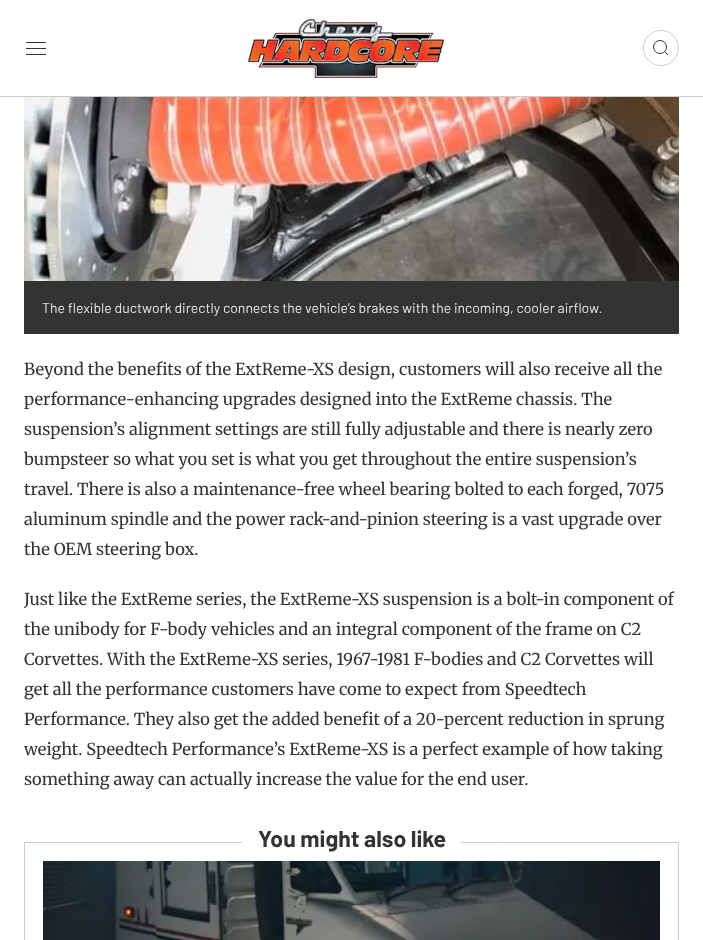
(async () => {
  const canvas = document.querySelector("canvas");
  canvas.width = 703;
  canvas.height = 940;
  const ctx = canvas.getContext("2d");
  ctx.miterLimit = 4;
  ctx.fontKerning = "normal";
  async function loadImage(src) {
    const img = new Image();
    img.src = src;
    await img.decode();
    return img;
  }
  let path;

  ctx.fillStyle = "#ffffff";
  ctx.fillRect(0, 0, 703, 940);
  for (const [x, y, w, h, color] of [
    [0, 96, 703, 1, "#cccccc"],
    [26, 42, 20, 1, "#333333"],
    [26, 48, 20, 1, "#333333"],
    [26, 54, 20, 1, "#333333"],
  ]) {
    ctx.fillStyle = color;
    ctx.fillRect(x, y, w, h);
  }
  ctx.drawImage(await loadImage("img/1.png"), 246, 18, 200, 61);
  ctx.beginPath();
  ctx.arc(661, 48, 17.5, 0, Math.PI * 2);
  ctx.strokeStyle = "#cccccc";
  ctx.stroke();
  ctx.beginPath();
  ctx.arc(660, 47, 6.5, 0, Math.PI * 2);
  ctx.strokeStyle = "#333333";
  ctx.stroke();
  path = new Path2D("M664.5 51.5L668 55Z");
  ctx.stroke(path);
  ctx.drawImage(await loadImage("img/2.png"), 24, 97, 655, 184);
  ctx.fillRect(24, 281, 655, 53);
  ctx.strokeStyle = "#cccccc";
  ctx.strokeRect(24.5, 842.5, 654, 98);
  ctx.fillStyle = "#ffffff";
  ctx.fillRect(242, 842, 219, 1);
  ctx.drawImage(await loadImage("img/3.png"), 43, 861, 617, 79);
  ctx.font = "14px Barlow";
  ctx.fillStyle = "#e6e6e6";
  ctx.fillText("The flexible ductwork directly connects the vehicle’s brakes with the incoming, cooler airflow.", 42, 313);
  ctx.font = "16.45px Merriweather";
  ctx.fillStyle = "#333333";
  for (const [text, x, y] of [
    ["Beyond the benefits of the ExtReme-XS design, customers will also receive all the", 24, 375],
    ["performance-enhancing upgrades designed into the ExtReme chassis. The", 24, 405],
    ["suspension’s alignment settings are still fully adjustable and there is nearly zero", 24, 435],
    ["bumpsteer so what you set is what you get throughout the entire suspension’s", 24, 465],
    ["travel. There is also a maintenance-free wheel bearing bolted to each forged, 7075", 24, 495],
    ["aluminum spindle and the power rack-and-pinion steering is a vast upgrade over", 24, 525],
    ["the OEM steering box.", 24, 555],
    ["Just like the ExtReme series, the ExtReme-XS suspension is a bolt-in component of", 24, 605],
    ["the unibody for F-body vehicles and an integral component of the frame on C2", 24, 635],
    ["Corvettes. With the ExtReme-XS series, 1967-1981 F-bodies and C2 Corvettes will", 24, 665],
    ["get all the performance customers have come to expect from Speedtech", 24, 695],
    ["Performance. They also get the added benefit of a 20-percent reduction in sprung", 24, 725],
    ["weight. Speedtech Performance’s ExtReme-XS is a perfect example of how taking", 24, 755],
    ["something away can actually increase the value for the end user.", 24, 785],
  ]) {
    ctx.fillText(text, x, y);
  }
  ctx.font = "bold 23px Barlow";
  ctx.fillText("You might also like", 258, 847);
})();
